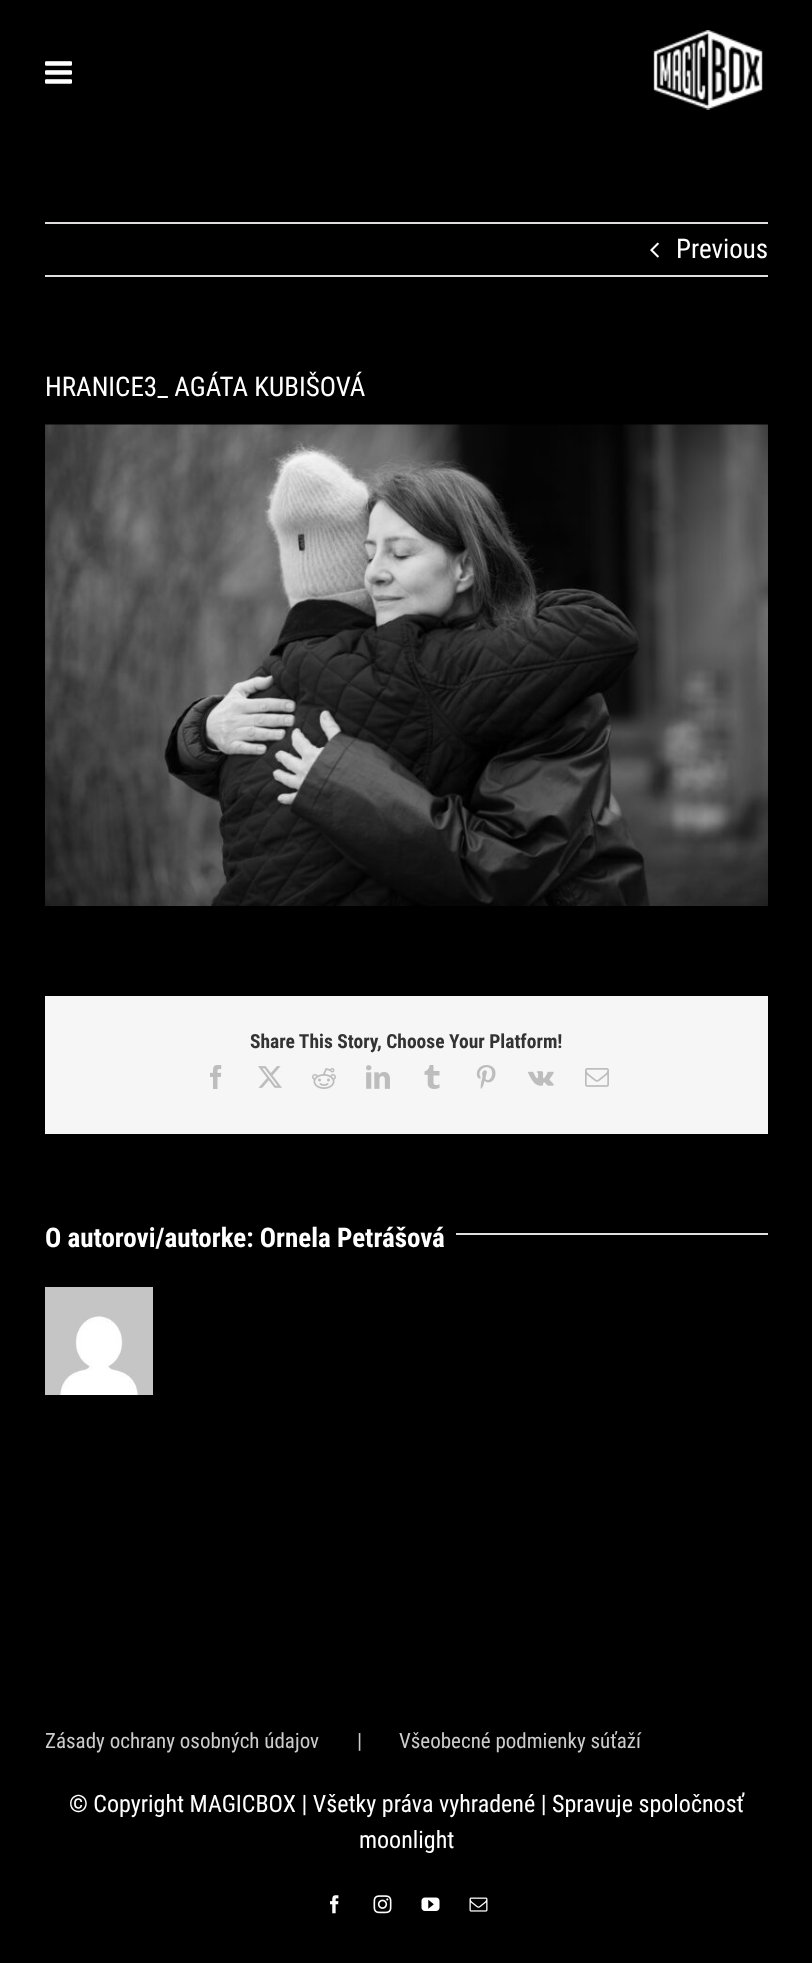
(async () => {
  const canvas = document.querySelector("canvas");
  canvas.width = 812;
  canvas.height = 1963;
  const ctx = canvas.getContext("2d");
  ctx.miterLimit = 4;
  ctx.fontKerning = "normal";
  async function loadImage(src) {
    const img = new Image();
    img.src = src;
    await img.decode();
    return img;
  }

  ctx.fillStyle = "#000000";
  ctx.fillRect(0, 0, 812, 1963);
  ctx.drawImage(await loadImage("img/1.png"), 45, 61, 27, 23);
  ctx.drawImage(await loadImage("img/2.png"), 653, 30, 110, 80);
  ctx.fillStyle = "#e0dede";
  ctx.fillRect(45, 222, 723, 2);
  ctx.fillRect(45, 275, 723, 2);
  ctx.drawImage(await loadImage("img/3.png"), 650, 242, 9, 16);
  ctx.drawImage(await loadImage("img/4.png"), 45, 424, 723, 482);
  ctx.fillStyle = "#f6f6f6";
  ctx.fillRect(45, 996, 723, 138);
  ctx.drawImage(await loadImage("img/5.png"), 210, 1065, 12, 24);
  ctx.drawImage(await loadImage("img/6.png"), 258, 1066, 24, 22);
  ctx.drawImage(await loadImage("img/7.png"), 312, 1068, 24, 21);
  ctx.drawImage(await loadImage("img/8.png"), 366, 1065, 24, 24);
  ctx.drawImage(await loadImage("img/9.png"), 424, 1065, 16, 24);
  ctx.drawImage(await loadImage("img/10.png"), 476, 1065, 20, 24);
  ctx.drawImage(await loadImage("img/11.png"), 528, 1071, 26, 15);
  ctx.drawImage(await loadImage("img/12.png"), 585, 1068, 24, 19);
  ctx.fillStyle = "#e0dede";
  ctx.fillRect(456, 1233, 312, 2);
  ctx.drawImage(await loadImage("img/13.png"), 45, 1287, 108, 108);
  ctx.drawImage(await loadImage("img/14.png"), 330, 1895, 9, 19);
  ctx.drawImage(await loadImage("img/15.png"), 373, 1895, 19, 19);
  ctx.drawImage(await loadImage("img/16.png"), 421, 1897, 19, 14);
  ctx.drawImage(await loadImage("img/17.png"), 469, 1897, 19, 15);
  ctx.font = "27px Roboto Condensed";
  ctx.fillStyle = "#ffffff";
  ctx.fillText("Previous", 676, 258);
  ctx.fillText("HRANICE3_ AGÁTA KUBIŠOVÁ", 45, 396);
  ctx.font = "bold 19.5px Roboto Condensed";
  ctx.fillStyle = "#333333";
  ctx.fillText("Share This Story, Choose Your Platform!", 250, 1048);
  ctx.font = "bold 27px Roboto Condensed";
  ctx.fillStyle = "#ffffff";
  ctx.fillText("O autorovi/autorke: Ornela Petrášová", 45, 1247);
  ctx.font = "21px Roboto Condensed";
  ctx.fillStyle = "#cccccc";
  for (const [text, x, y] of [
    ["Zásady ochrany osobných údajov", 45, 1748],
    ["|", 357, 1748],
    ["Všeobecné podmienky súťaží", 399, 1748],
  ]) {
    ctx.fillText(text, x, y);
  }
  ctx.font = "24px Roboto Condensed";
  ctx.fillStyle = "#ffffff";
  ctx.fillText("© Copyright MAGICBOX | Všetky práva vyhradené | Spravuje spoločnosť", 69, 1812);
  ctx.fillText("moonlight", 359, 1848);
})();
